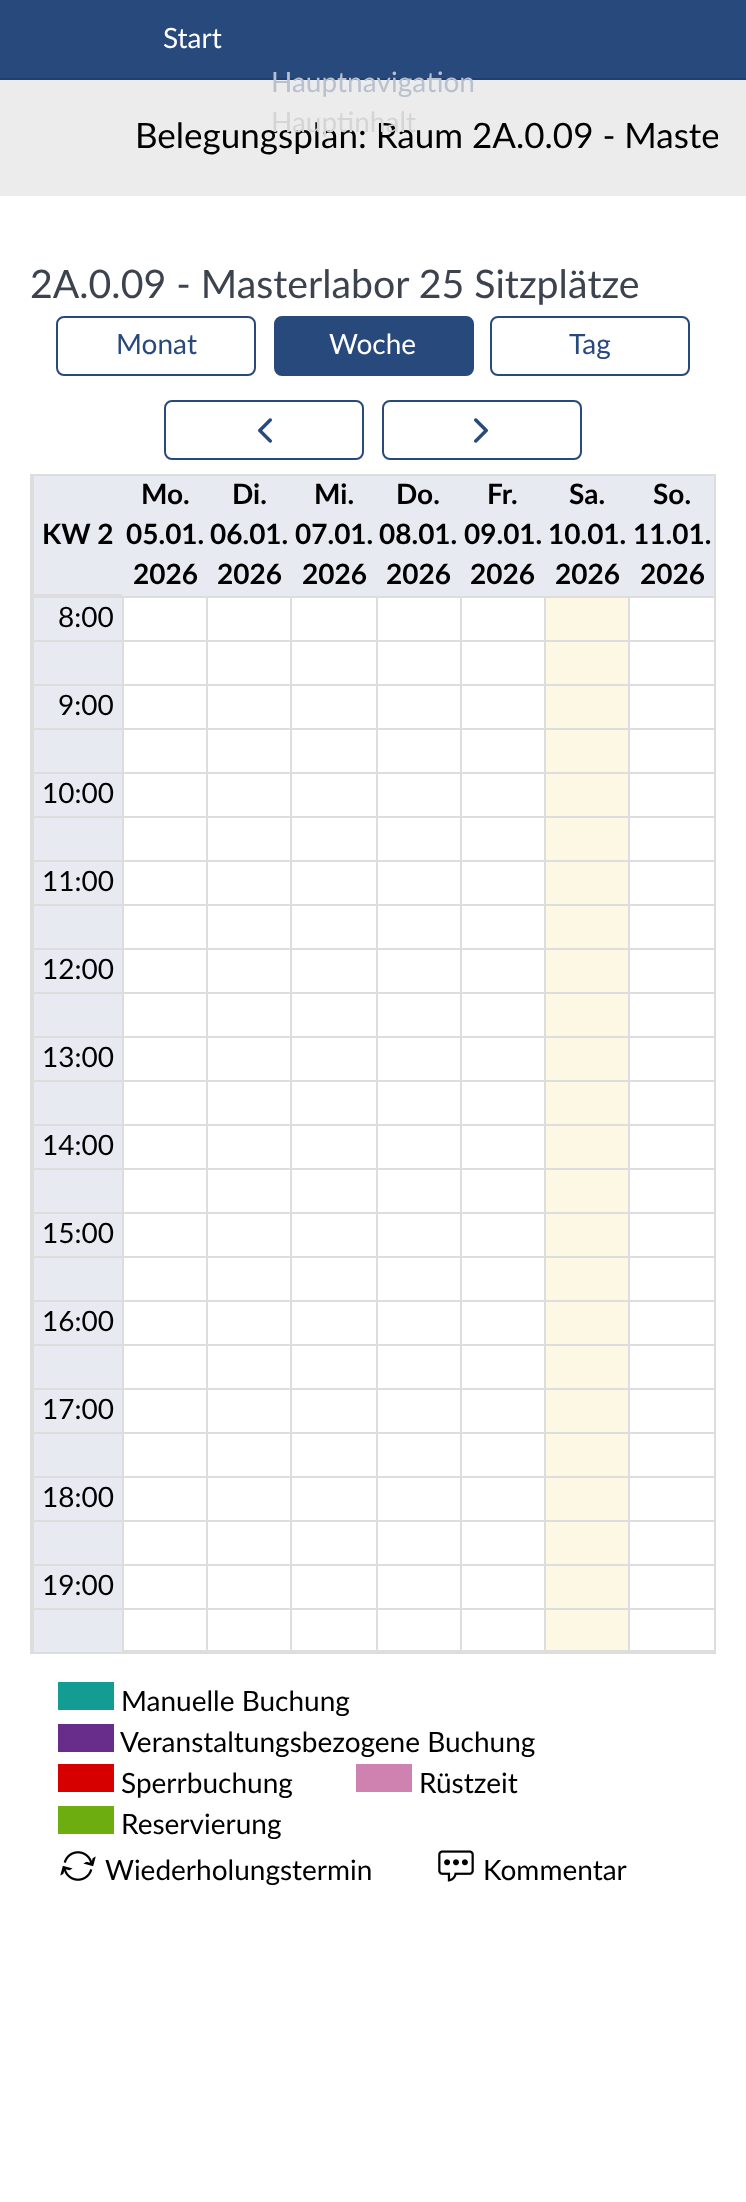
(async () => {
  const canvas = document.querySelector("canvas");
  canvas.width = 746;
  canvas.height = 2202;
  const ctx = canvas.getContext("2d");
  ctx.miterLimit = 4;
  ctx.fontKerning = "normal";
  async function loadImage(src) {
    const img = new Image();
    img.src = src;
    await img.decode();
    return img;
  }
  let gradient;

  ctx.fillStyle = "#ffffff";
  ctx.fillRect(0, 0, 746, 2202);
  for (const [x, y, w, h, color] of [
    [0, 0, 746, 78, "#28497c"],
    [0, 78, 746, 2, "#1f3f70"],
    [0, 80, 746, 116, "#ececed"],
  ]) {
    ctx.fillStyle = color;
    ctx.fillRect(x, y, w, h);
  }
  gradient = ctx.createRadialGradient(746, 35.61, 0, 746, 35.61, 28);
  gradient.addColorStop(0, "#cccccc");
  gradient.addColorStop(1, "#ffffff");
  ctx.fillStyle = gradient;
  ctx.beginPath();
  ctx.rect(719, 759, 3, 634);
  ctx.save();
  ctx.clip();
  ctx.scale(1, 846 / 28);
  ctx.fillRect(0, 0, 746, 73);
  ctx.restore();
  gradient = ctx.createRadialGradient(0, 35.61, 0, 0, 35.61, 28);
  gradient.addColorStop(0, "#cccccc");
  gradient.addColorStop(1, "#ffffff");
  ctx.fillStyle = gradient;
  ctx.beginPath();
  ctx.rect(24, 759, 3, 634);
  ctx.save();
  ctx.clip();
  ctx.scale(1, 846 / 28);
  ctx.fillRect(0, 0, 746, 73);
  ctx.restore();
  gradient = ctx.createLinearGradient(666, 1076, 746, 1076);
  gradient.addColorStop(0, "rgba(255, 255, 255, 0)");
  gradient.addColorStop(0.7, "#ffffff");
  ctx.fillStyle = gradient;
  ctx.fillRect(719, 759, 3, 634);
  gradient = ctx.createLinearGradient(0, 1076, 80, 1076);
  gradient.addColorStop(0.3, "#ffffff");
  gradient.addColorStop(1, "rgba(255, 255, 255, 0)");
  ctx.fillStyle = gradient;
  ctx.fillRect(24, 759, 3, 634);
  ctx.beginPath();
  ctx.roundRect(57, 317, 198, 58, 7);
  ctx.strokeStyle = "#28497c";
  ctx.lineWidth = 2;
  ctx.stroke();
  ctx.fillStyle = "#28497c";
  ctx.beginPath();
  ctx.roundRect(275, 317, 198, 58, 7);
  ctx.fill();
  ctx.stroke();
  ctx.beginPath();
  ctx.roundRect(491, 317, 198, 58, 7);
  ctx.stroke();
  ctx.beginPath();
  ctx.roundRect(165, 401, 198, 58, 7);
  ctx.stroke();
  ctx.drawImage(await loadImage("img/1.png"), 258, 418, 14, 25);
  ctx.beginPath();
  ctx.roundRect(383, 401, 198, 58, 7);
  ctx.stroke();
  ctx.drawImage(await loadImage("img/2.png"), 474, 418, 14, 25);
  for (const [x, y, w, h, color] of [
    [34, 476, 88, 118, "#e7ebf1"],
    [30, 474, 686, 2, "#dddddd"],
    [30, 596, 686, 2, "#dddddd"],
    [714, 596, 2, 1058, "#dddddd"],
    [714, 474, 2, 124, "#dddddd"],
    [30, 1652, 686, 2, "#dddddd"],
    [30, 596, 2, 1058, "#dddddd"],
    [30, 474, 2, 124, "#dddddd"],
    [32, 594, 92, 2, "#dddddd"],
    [122, 476, 592, 120, "#e7ebf1"],
    [32, 474, 2, 122, "#dddddd"],
    [34, 642, 88, 42, "#e7ebf1"],
    [628, 1650, 86, 2, "#dddddd"],
    [628, 598, 2, 1054, "#dddddd"],
    [544, 1650, 86, 2, "#dddddd"],
    [544, 598, 2, 1054, "#dddddd"],
    [460, 1650, 86, 2, "#dddddd"],
    [460, 598, 2, 1054, "#dddddd"],
    [376, 1650, 86, 2, "#dddddd"],
    [376, 598, 2, 1054, "#dddddd"],
    [290, 1650, 88, 2, "#dddddd"],
    [290, 598, 2, 1054, "#dddddd"],
    [206, 1650, 86, 2, "#dddddd"],
    [206, 598, 2, 1054, "#dddddd"],
    [122, 1650, 86, 2, "#dddddd"],
    [122, 598, 2, 1054, "#dddddd"],
    [546, 598, 82, 1052, "#fcf8e3"],
    [32, 640, 682, 2, "#dddddd"],
    [32, 684, 682, 2, "#dddddd"],
    [32, 728, 682, 2, "#dddddd"],
    [32, 772, 682, 2, "#dddddd"],
    [32, 816, 682, 2, "#dddddd"],
    [32, 860, 682, 2, "#dddddd"],
    [32, 904, 682, 2, "#dddddd"],
    [32, 948, 682, 2, "#dddddd"],
    [32, 992, 682, 2, "#dddddd"],
    [32, 1036, 682, 2, "#dddddd"],
    [32, 1080, 682, 2, "#dddddd"],
    [32, 1124, 682, 2, "#dddddd"],
    [32, 1168, 682, 2, "#dddddd"],
    [32, 1212, 682, 2, "#dddddd"],
    [32, 1256, 682, 2, "#dddddd"],
    [32, 1300, 682, 2, "#dddddd"],
    [32, 1344, 682, 2, "#dddddd"],
    [32, 1388, 682, 2, "#dddddd"],
    [32, 1432, 682, 2, "#dddddd"],
    [32, 1476, 682, 2, "#dddddd"],
    [32, 1520, 682, 2, "#dddddd"],
    [32, 1564, 682, 2, "#dddddd"],
    [32, 1608, 682, 2, "#dddddd"],
    [32, 1608, 2, 44, "#dddddd"],
    [32, 1564, 2, 46, "#dddddd"],
    [32, 1520, 2, 46, "#dddddd"],
    [32, 1476, 2, 46, "#dddddd"],
    [32, 1432, 2, 46, "#dddddd"],
    [32, 1388, 2, 46, "#dddddd"],
    [32, 1344, 2, 46, "#dddddd"],
    [32, 1300, 2, 46, "#dddddd"],
    [32, 1256, 2, 46, "#dddddd"],
    [32, 1212, 2, 46, "#dddddd"],
    [32, 1168, 2, 46, "#dddddd"],
    [32, 1124, 2, 46, "#dddddd"],
    [32, 1080, 2, 46, "#dddddd"],
    [32, 1036, 2, 46, "#dddddd"],
    [32, 992, 2, 46, "#dddddd"],
    [32, 948, 2, 46, "#dddddd"],
    [32, 904, 2, 46, "#dddddd"],
    [32, 860, 2, 46, "#dddddd"],
    [32, 816, 2, 46, "#dddddd"],
    [32, 772, 2, 46, "#dddddd"],
    [32, 728, 2, 46, "#dddddd"],
    [32, 684, 2, 46, "#dddddd"],
    [32, 598, 2, 88, "#dddddd"],
    [34, 598, 88, 42, "#e7ebf1"],
    [34, 686, 88, 42, "#e7ebf1"],
    [34, 730, 88, 42, "#e7ebf1"],
    [34, 774, 88, 42, "#e7ebf1"],
    [34, 818, 88, 42, "#e7ebf1"],
    [34, 862, 88, 42, "#e7ebf1"],
    [34, 906, 88, 42, "#e7ebf1"],
    [34, 950, 88, 42, "#e7ebf1"],
    [34, 994, 88, 42, "#e7ebf1"],
    [34, 1038, 88, 42, "#e7ebf1"],
    [34, 1082, 88, 42, "#e7ebf1"],
    [34, 1126, 88, 42, "#e7ebf1"],
    [34, 1170, 88, 42, "#e7ebf1"],
    [34, 1214, 88, 42, "#e7ebf1"],
    [34, 1258, 88, 42, "#e7ebf1"],
    [34, 1302, 88, 42, "#e7ebf1"],
    [34, 1346, 88, 42, "#e7ebf1"],
    [34, 1390, 88, 42, "#e7ebf1"],
    [34, 1434, 88, 42, "#e7ebf1"],
    [34, 1478, 88, 42, "#e7ebf1"],
    [34, 1522, 88, 42, "#e7ebf1"],
    [34, 1566, 88, 42, "#e7ebf1"],
    [34, 1610, 88, 42, "#e7ebf1"],
    [58, 1682, 56, 28, "#129c94"],
    [58, 1724, 56, 28, "#682c8b"],
    [58, 1764, 56, 28, "#d60000"],
    [356, 1764, 56, 28, "#cf81b0"],
    [58, 1806, 56, 28, "#6ead10"],
  ]) {
    ctx.fillStyle = color;
    ctx.fillRect(x, y, w, h);
  }
  ctx.drawImage(await loadImage("img/3.png"), 60, 1851, 36, 30);
  ctx.drawImage(await loadImage("img/4.png"), 438, 1850, 36, 32);
  ctx.font = "28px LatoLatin";
  ctx.fillStyle = "#ffffff";
  ctx.fillText("Start", 163, 48);
  ctx.save();
  ctx.beginPath();
  ctx.rect(100, 112, 618, 52);
  ctx.clip();
  ctx.font = "35px LatoLatin";
  ctx.fillStyle = "#000000";
  ctx.fillText("Belegungsplan: Raum 2A.0.09 - Maste", 135, 148);
  ctx.restore();
  ctx.fillStyle = "#b9c1ce";
  ctx.fillText("Hauptnavigation", 271, 92);
  ctx.fillStyle = "#d5d5d6";
  ctx.fillText("Hauptinhalt", 271, 132);
  ctx.font = "39.25px LatoLatin";
  ctx.fillStyle = "#3c434e";
  ctx.fillText("2A.0.09 - Masterlabor 25 Sitzplätze", 30, 298);
  ctx.font = "28px LatoLatin";
  ctx.fillStyle = "#28497c";
  ctx.fillText("Monat", 116, 354);
  ctx.fillStyle = "#ffffff";
  ctx.fillText("Woche", 329, 354);
  ctx.fillStyle = "#28497c";
  ctx.fillText("Tag", 569, 354);
  ctx.font = "bold 28px LatoLatin";
  ctx.fillStyle = "#000000";
  for (const [text, x, y] of [
    ["Mo.", 141, 504],
    ["05.01.", 126, 544],
    ["2026", 133, 584],
    ["Di.", 232, 504],
    ["06.01.", 210, 544],
    ["2026", 217, 584],
    ["Mi.", 314, 504],
    ["07.01.", 295, 544],
    ["2026", 302, 584],
    ["Do.", 396, 504],
    ["08.01.", 379, 544],
    ["2026", 386, 584],
    ["Fr.", 487, 504],
    ["09.01.", 464, 544],
    ["2026", 470, 584],
    ["Sa.", 569, 504],
    ["10.01. 11.01.", 548, 544],
    ["2026", 555, 584],
    ["KW 2", 42, 544],
    ["So.", 653, 504],
    ["2026", 640, 584],
  ]) {
    ctx.fillText(text, x, y);
  }
  ctx.font = "28px LatoLatin";
  for (const [text, x, y] of [
    ["8:00", 58, 627],
    ["9:00", 58, 715],
    ["10:00", 42, 803],
    ["11:00", 42, 891],
    ["12:00", 42, 979],
    ["13:00", 42, 1067],
    ["14:00", 42, 1155],
    ["15:00", 42, 1243],
    ["16:00", 42, 1331],
    ["17:00", 42, 1419],
    ["18:00", 42, 1507],
    ["19:00", 42, 1595],
    ["Manuelle Buchung", 121, 1711],
    ["Veranstaltungsbezogene Buchung", 120, 1752],
    ["Sperrbuchung", 121, 1793],
    ["Rüstzeit", 419, 1793],
    ["Reservierung", 121, 1834],
    ["Wiederholungstermin", 105, 1880],
    ["Kommentar", 483, 1880],
  ]) {
    ctx.fillText(text, x, y);
  }
})();
